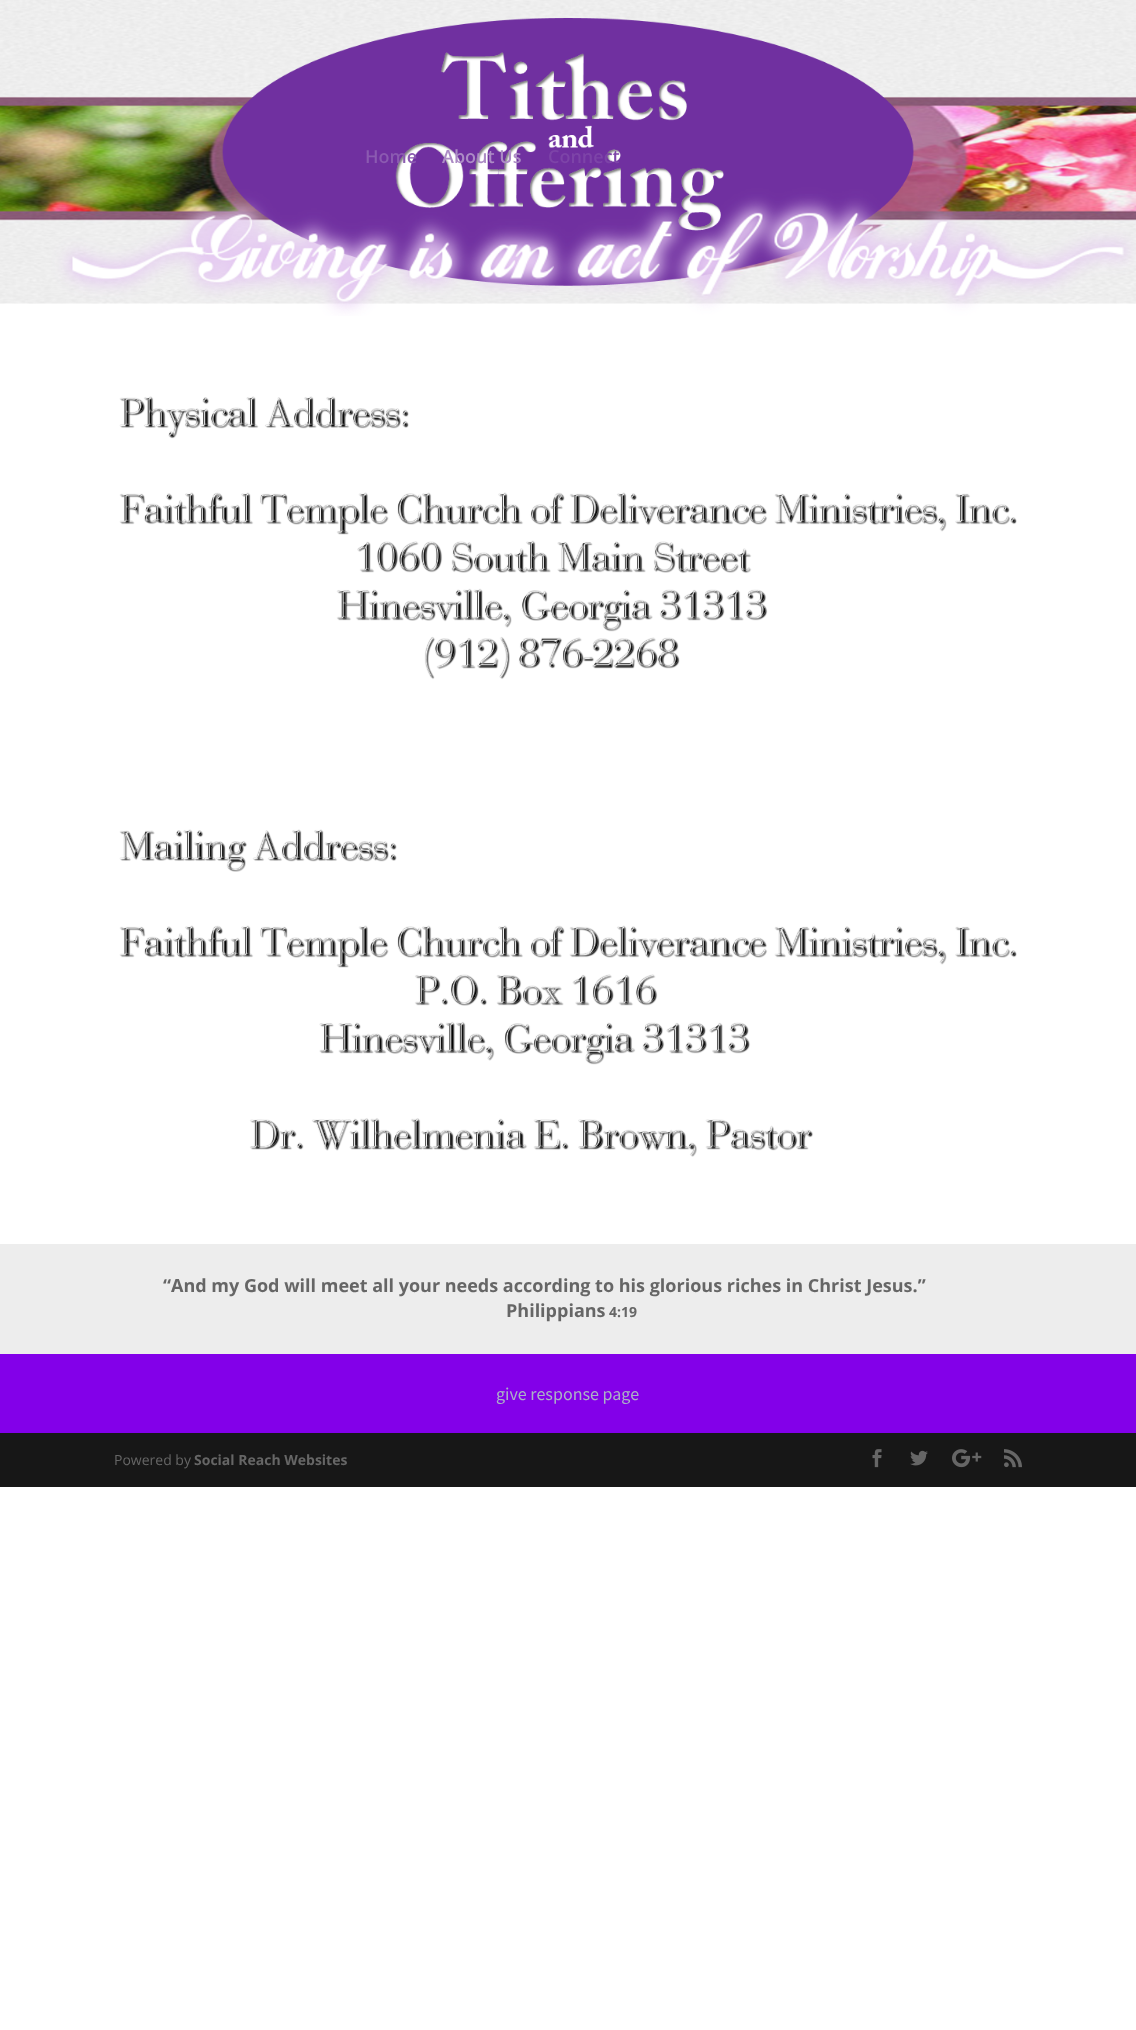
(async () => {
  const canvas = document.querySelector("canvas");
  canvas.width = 1136;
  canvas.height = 2030;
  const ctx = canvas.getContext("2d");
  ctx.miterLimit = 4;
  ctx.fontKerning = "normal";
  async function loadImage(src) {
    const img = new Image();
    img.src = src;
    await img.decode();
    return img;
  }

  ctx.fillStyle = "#ffffff";
  ctx.fillRect(0, 0, 1136, 2030);
  ctx.drawImage(await loadImage("img/1.png"), 0, 0, 1136, 316);
  ctx.drawImage(await loadImage("img/2.png"), 119, 396, 898, 761);
  for (const [x, y, w, h, color] of [
    [0, 1244, 1136, 110, "#ededed"],
    [0, 1354, 1136, 79, "#8300e9"],
    [0, 1433, 1136, 54, "#171717"],
  ]) {
    ctx.fillStyle = color;
    ctx.fillRect(x, y, w, h);
  }
  ctx.drawImage(await loadImage("img/3.png"), 872, 1449, 10, 19);
  ctx.drawImage(await loadImage("img/4.png"), 910, 1450, 18, 16);
  ctx.drawImage(await loadImage("img/5.png"), 952, 1449, 30, 19);
  ctx.drawImage(await loadImage("img/6.png"), 1004, 1449, 18, 19);
  ctx.font = "600 18px Open Sans";
  ctx.fillStyle = "#8b5ab1";
  ctx.fillText("Home", 365, 163);
  ctx.fillStyle = "#ac8bc5";
  ctx.fillText("About Us", 442, 163);
  ctx.fillStyle = "#7d44a8";
  ctx.fillText("Connect", 548, 163);
  ctx.font = "bold 18px Open Sans";
  ctx.fillStyle = "#666666";
  ctx.fillText("“And my God will meet all your needs according to his glorious riches in Christ Jesus.”", 163, 1292);
  ctx.fillText("Philippians", 506, 1317);
  ctx.font = "bold 14px Open Sans";
  ctx.fillText("4:19", 609, 1317);
  ctx.font = "18px Source Sans Pro";
  ctx.fillStyle = "#abb2c5";
  ctx.fillText("give response page", 496, 1400);
  ctx.font = "14px Open Sans";
  ctx.fillStyle = "#666666";
  ctx.fillText("Powered by", 114, 1465);
  ctx.font = "bold 14px Open Sans";
  ctx.fillText("Social Reach Websites", 194, 1465);
})();
